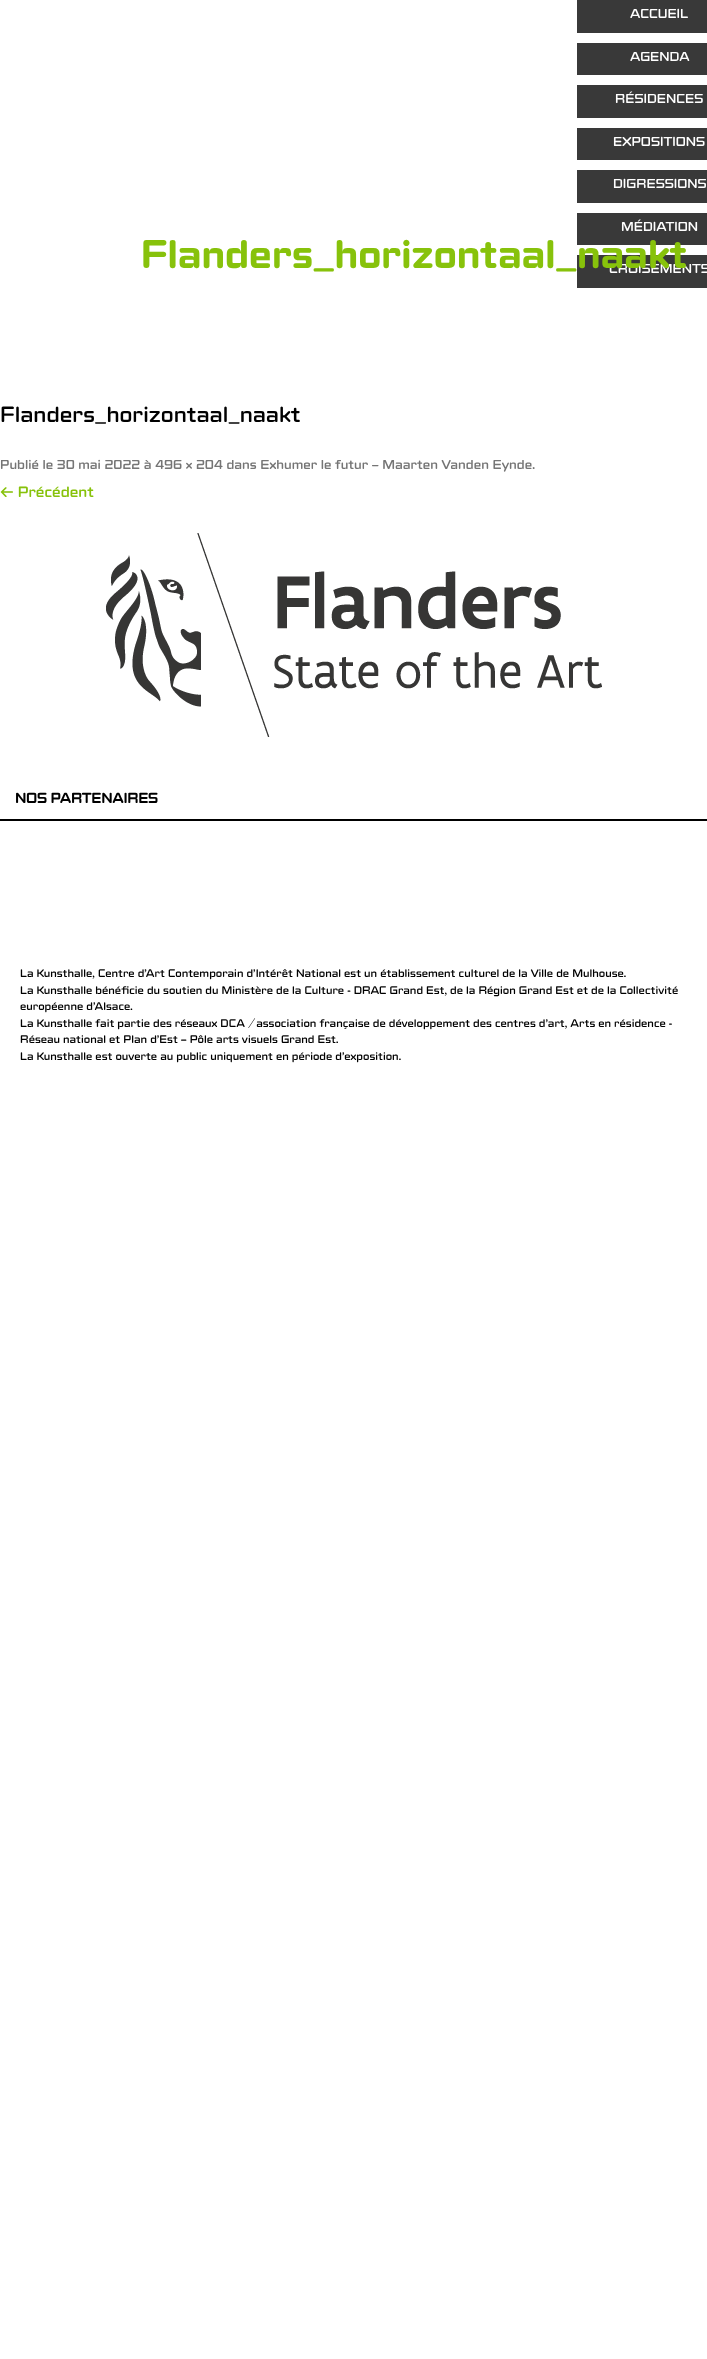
(async () => {
  const canvas = document.querySelector("canvas");
  canvas.width = 707;
  canvas.height = 2359;
  const ctx = canvas.getContext("2d");
  ctx.miterLimit = 4;
  ctx.fontKerning = "normal";
  async function loadImage(src) {
    const img = new Image();
    img.src = src;
    await img.decode();
    return img;
  }

  ctx.fillStyle = "#ffffff";
  ctx.fillRect(0, 0, 707, 2359);
  for (const [x, y, w, h, color] of [
    [577, 0, 130, 33, "#393939"],
    [577, 43, 130, 32, "#393939"],
    [577, 85, 130, 33, "#393939"],
    [577, 128, 130, 32, "#393939"],
    [577, 170, 130, 33, "#393939"],
    [577, 213, 130, 32, "#393939"],
    [577, 255, 130, 33, "#393939"],
  ]) {
    ctx.fillStyle = color;
    ctx.fillRect(x, y, w, h);
  }
  ctx.drawImage(await loadImage("img/1.png"), 106, 533, 496, 204);
  ctx.fillStyle = "#000000";
  ctx.fillRect(0, 819, 707, 2);
  ctx.font = "13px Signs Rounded";
  ctx.fillStyle = "#ffffff";
  for (const [text, x, y] of [
    ["ACCUEIL", 630, 18],
    ["AGENDA", 630, 61],
    ["RÉSIDENCES", 615, 103],
    ["EXPOSITIONS", 613, 146],
    ["DIGRESSIONS", 613, 188],
    ["MÉDIATION", 621, 231],
    ["CROISEMENTS", 609, 273],
  ]) {
    ctx.fillText(text, x, y);
  }
  ctx.font = "500 40px Signs Rounded";
  ctx.fillStyle = "#87c20b";
  ctx.fillText("Flanders_horizontaal_naakt", 141, 268);
  ctx.font = "22px Signs Rounded";
  ctx.fillStyle = "#000000";
  ctx.fillText("Flanders_horizontaal_naakt", 0, 422);
  ctx.font = "13px Signs Rounded";
  ctx.fillStyle = "#757575";
  ctx.fillText("Publié le 30 mai 2022 à 496 × 204 dans Exhumer le futur – Maarten Vanden Eynde.", 0, 469);
  ctx.font = "15px Signs Rounded";
  ctx.fillStyle = "#87c20b";
  ctx.fillText("← Précédent", 0, 497);
  ctx.font = "bold 14px Signs Rounded";
  ctx.fillStyle = "#000000";
  ctx.fillText("NOS PARTENAIRES", 15, 803);
  ctx.font = "11px Signs Rounded";
  for (const [text, x, y] of [
    ["La Kunsthalle, Centre d’Art Contemporain d’Intérêt National est un établissement culturel de la Ville de Mulhouse.", 20, 977],
    ["La Kunsthalle bénéficie du soutien du Ministère de la Culture - DRAC Grand Est, de la Région Grand Est et de la Collectivité", 20, 994],
    ["européenne d’Alsace.", 20, 1010],
    ["La Kunsthalle fait partie des réseaux DCA / association française de développement des centres d'art, Arts en résidence -", 20, 1027],
    ["Réseau national et Plan d’Est – Pôle arts visuels Grand Est.", 20, 1043],
    ["La Kunsthalle est ouverte au public uniquement en période d'exposition.", 20, 1060],
  ]) {
    ctx.fillText(text, x, y);
  }
})();
